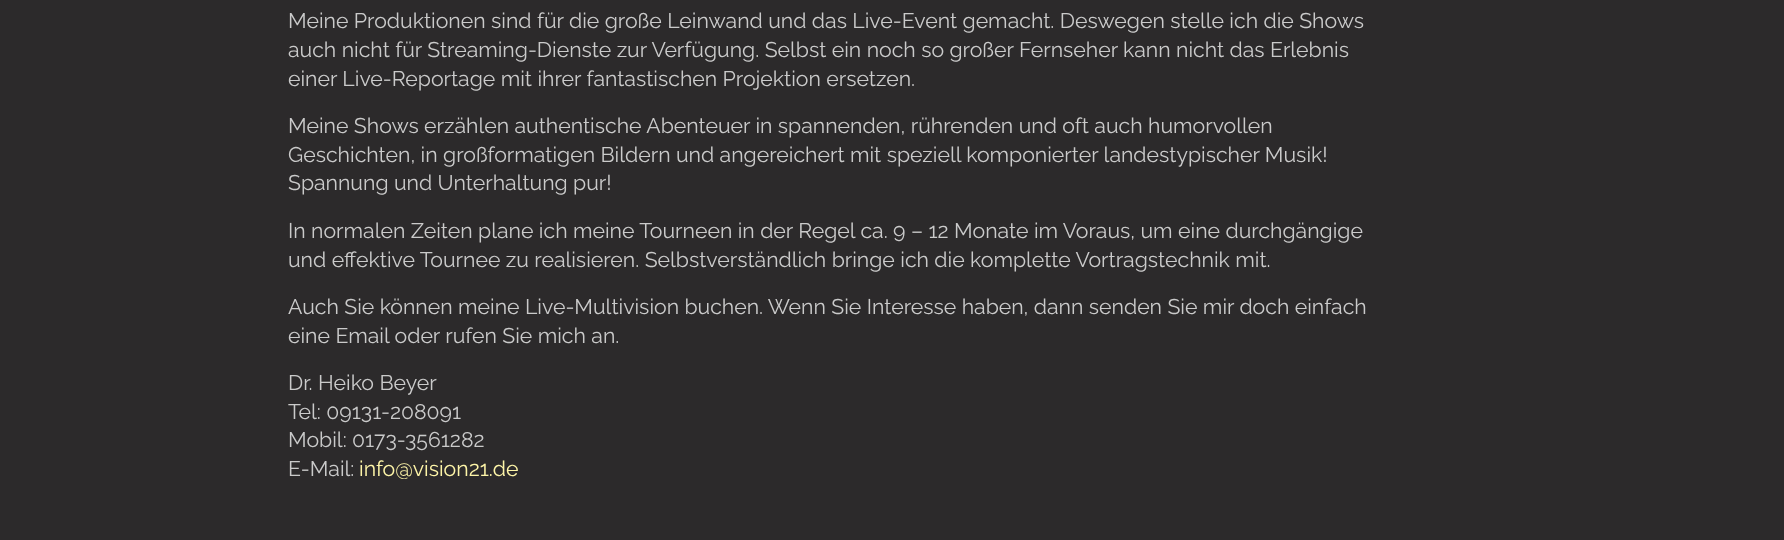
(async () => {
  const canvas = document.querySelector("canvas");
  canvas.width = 1784;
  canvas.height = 540;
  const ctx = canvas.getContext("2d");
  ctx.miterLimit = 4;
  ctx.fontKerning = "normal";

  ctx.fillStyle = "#2c2a2b";
  ctx.fillRect(0, 0, 1784, 540);
  ctx.font = "100 21.25px Raleway";
  ctx.fillStyle = "#cacaca";
  for (const [text, x, y] of [
    ["Meine Produktionen sind für die große Leinwand und das Live-Event gemacht. Deswegen stelle ich die Shows", 288, 28],
    ["auch nicht für Streaming-Dienste zur Verfügung. Selbst ein noch so großer Fernseher kann nicht das Erlebnis", 288, 57],
    ["einer Live-Reportage mit ihrer fantastischen Projektion ersetzen.", 288, 86],
    ["Meine Shows erzählen authentische Abenteuer in spannenden, rührenden und oft auch humorvollen", 288, 133],
    ["Geschichten, in großformatigen Bildern und angereichert mit speziell komponierter landestypischer Musik!", 288, 162],
    ["Spannung und Unterhaltung pur!", 288, 190],
    ["In normalen Zeiten plane ich meine Tourneen in der Regel ca. 9 – 12 Monate im Voraus, um eine durchgängige", 288, 238],
    ["und effektive Tournee zu realisieren. Selbstverständlich bringe ich die komplette Vortragstechnik mit.", 288, 267],
    ["Auch Sie können meine Live-Multivision buchen. Wenn Sie Interesse haben, dann senden Sie mir doch einfach", 288, 314],
    ["eine Email oder rufen Sie mich an.", 288, 343],
    ["Dr. Heiko Beyer", 288, 390],
    ["Tel: 09131-208091", 288, 419],
    ["Mobil: 0173-3561282", 288, 447],
    ["E-Mail:", 288, 476],
  ]) {
    ctx.fillText(text, x, y);
  }
  ctx.fillStyle = "#fef5a8";
  ctx.fillText("info@vision21.de", 359, 476);
})();
